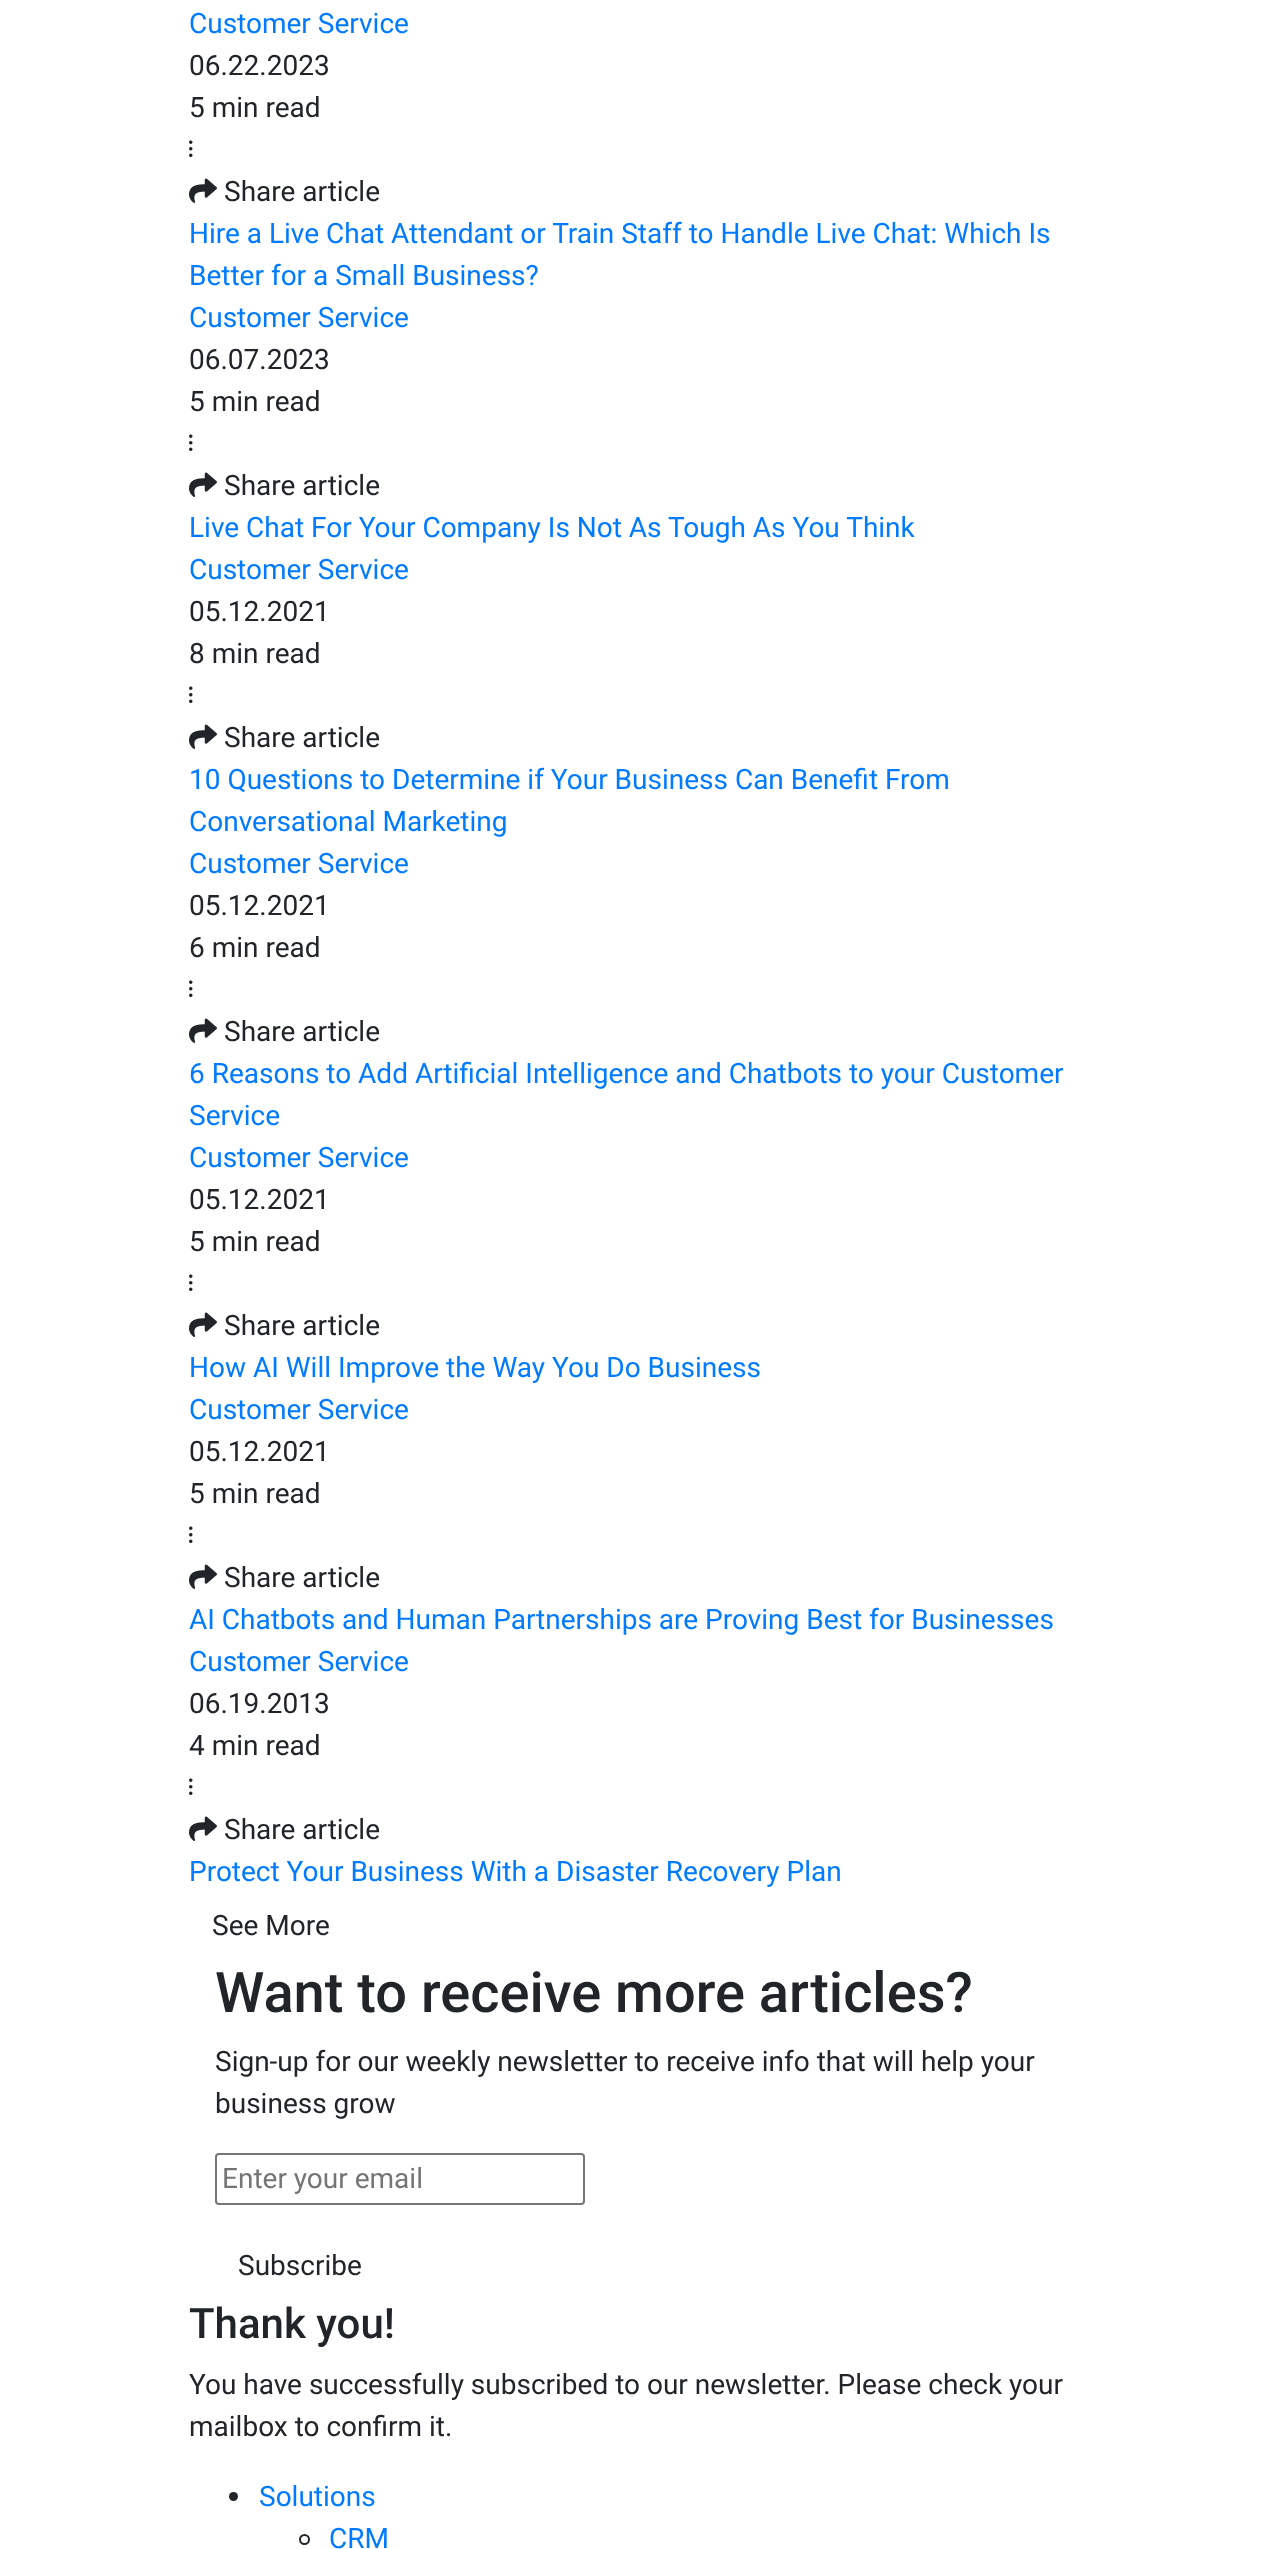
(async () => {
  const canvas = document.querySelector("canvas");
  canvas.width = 1269;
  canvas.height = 2549;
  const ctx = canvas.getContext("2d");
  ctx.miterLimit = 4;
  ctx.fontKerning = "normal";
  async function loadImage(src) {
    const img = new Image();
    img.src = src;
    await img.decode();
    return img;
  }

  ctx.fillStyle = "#ffffff";
  ctx.fillRect(0, 0, 1269, 2549);
  ctx.drawImage(await loadImage("img/1.png"), 189, 140, 4, 17);
  ctx.drawImage(await loadImage("img/2.png"), 189, 178, 28, 25);
  ctx.drawImage(await loadImage("img/1.png"), 189, 434, 4, 17);
  ctx.drawImage(await loadImage("img/2.png"), 189, 472, 28, 25);
  ctx.drawImage(await loadImage("img/1.png"), 189, 686, 4, 17);
  ctx.drawImage(await loadImage("img/2.png"), 189, 724, 28, 25);
  ctx.drawImage(await loadImage("img/1.png"), 189, 980, 4, 17);
  ctx.drawImage(await loadImage("img/2.png"), 189, 1018, 28, 25);
  ctx.drawImage(await loadImage("img/1.png"), 189, 1274, 4, 17);
  ctx.drawImage(await loadImage("img/2.png"), 189, 1312, 28, 25);
  ctx.drawImage(await loadImage("img/1.png"), 189, 1526, 4, 17);
  ctx.drawImage(await loadImage("img/2.png"), 189, 1564, 28, 25);
  ctx.drawImage(await loadImage("img/1.png"), 189, 1778, 4, 17);
  ctx.drawImage(await loadImage("img/2.png"), 189, 1816, 28, 25);
  ctx.beginPath();
  ctx.roundRect(216, 2154, 368, 50, 3);
  ctx.strokeStyle = "#767676";
  ctx.lineWidth = 2;
  ctx.stroke();
  ctx.fillStyle = "#212529";
  ctx.beginPath();
  ctx.arc(233.5, 2496.5, 4.5, 0, Math.PI * 2);
  ctx.fill();
  ctx.beginPath();
  ctx.arc(304.5, 2539.5, 4.5, 0, Math.PI * 2);
  ctx.strokeStyle = "#212529";
  ctx.stroke();
  ctx.font = "28px Roboto";
  ctx.fillStyle = "#007bff";
  ctx.fillText("Customer Service", 189, 33);
  ctx.fillStyle = "#212529";
  for (const [text, x, y] of [
    ["06.22.2023", 189, 75],
    ["5 min read", 189, 117],
    ["Share article", 224, 201],
  ]) {
    ctx.fillText(text, x, y);
  }
  ctx.fillStyle = "#007bff";
  for (const [text, x, y] of [
    ["Hire a Live Chat Attendant or Train Staff to Handle Live Chat: Which Is", 189, 243],
    ["Better for a Small Business?", 189, 285],
    ["Customer Service", 189, 327],
  ]) {
    ctx.fillText(text, x, y);
  }
  ctx.fillStyle = "#212529";
  for (const [text, x, y] of [
    ["06.07.2023", 189, 369],
    ["5 min read", 189, 411],
    ["Share article", 224, 495],
  ]) {
    ctx.fillText(text, x, y);
  }
  ctx.fillStyle = "#007bff";
  ctx.fillText("Live Chat For Your Company Is Not As Tough As You Think", 189, 537);
  ctx.fillText("Customer Service", 189, 579);
  ctx.fillStyle = "#212529";
  for (const [text, x, y] of [
    ["05.12.2021", 189, 621],
    ["8 min read", 189, 663],
    ["Share article", 224, 747],
  ]) {
    ctx.fillText(text, x, y);
  }
  ctx.fillStyle = "#007bff";
  for (const [text, x, y] of [
    ["10 Questions to Determine if Your Business Can Benefit From", 189, 789],
    ["Conversational Marketing", 189, 831],
    ["Customer Service", 189, 873],
  ]) {
    ctx.fillText(text, x, y);
  }
  ctx.fillStyle = "#212529";
  for (const [text, x, y] of [
    ["05.12.2021", 189, 915],
    ["6 min read", 189, 957],
    ["Share article", 224, 1041],
  ]) {
    ctx.fillText(text, x, y);
  }
  ctx.fillStyle = "#007bff";
  for (const [text, x, y] of [
    ["6 Reasons to Add Artificial Intelligence and Chatbots to your Customer", 189, 1083],
    ["Service", 189, 1125],
    ["Customer Service", 189, 1167],
  ]) {
    ctx.fillText(text, x, y);
  }
  ctx.fillStyle = "#212529";
  for (const [text, x, y] of [
    ["05.12.2021", 189, 1209],
    ["5 min read", 189, 1251],
    ["Share article", 224, 1335],
  ]) {
    ctx.fillText(text, x, y);
  }
  ctx.fillStyle = "#007bff";
  ctx.fillText("How AI Will Improve the Way You Do Business", 189, 1377);
  ctx.fillText("Customer Service", 189, 1419);
  ctx.fillStyle = "#212529";
  for (const [text, x, y] of [
    ["05.12.2021", 189, 1461],
    ["5 min read", 189, 1503],
    ["Share article", 224, 1587],
  ]) {
    ctx.fillText(text, x, y);
  }
  ctx.fillStyle = "#007bff";
  ctx.fillText("AI Chatbots and Human Partnerships are Proving Best for Businesses", 189, 1629);
  ctx.fillText("Customer Service", 189, 1671);
  ctx.fillStyle = "#212529";
  for (const [text, x, y] of [
    ["06.19.2013", 189, 1713],
    ["4 min read", 189, 1755],
    ["Share article", 224, 1839],
  ]) {
    ctx.fillText(text, x, y);
  }
  ctx.fillStyle = "#007bff";
  ctx.fillText("Protect Your Business With a Disaster Recovery Plan", 189, 1881);
  ctx.fillStyle = "#212529";
  ctx.fillText("See More", 212, 1935);
  ctx.font = "500 56px Roboto";
  ctx.fillText("Want to receive more articles?", 215, 2012);
  ctx.font = "28px Roboto";
  ctx.fillText("Sign-up for our weekly newsletter to receive info that will help your", 215, 2071);
  ctx.fillText("business grow", 215, 2113);
  ctx.fillStyle = "#757575";
  ctx.fillText("Enter your email", 222, 2188);
  ctx.fillStyle = "#212529";
  ctx.fillText("Subscribe", 238, 2275);
  ctx.font = "500 42px Roboto";
  ctx.fillText("Thank you!", 189, 2338);
  ctx.font = "28px Roboto";
  ctx.fillText("You have successfully subscribed to our newsletter. Please check your", 189, 2394);
  ctx.fillText("mailbox to confirm it.", 189, 2436);
  ctx.fillStyle = "#007bff";
  ctx.fillText("Solutions", 259, 2506);
  ctx.fillText("CRM", 329, 2548);
})();
